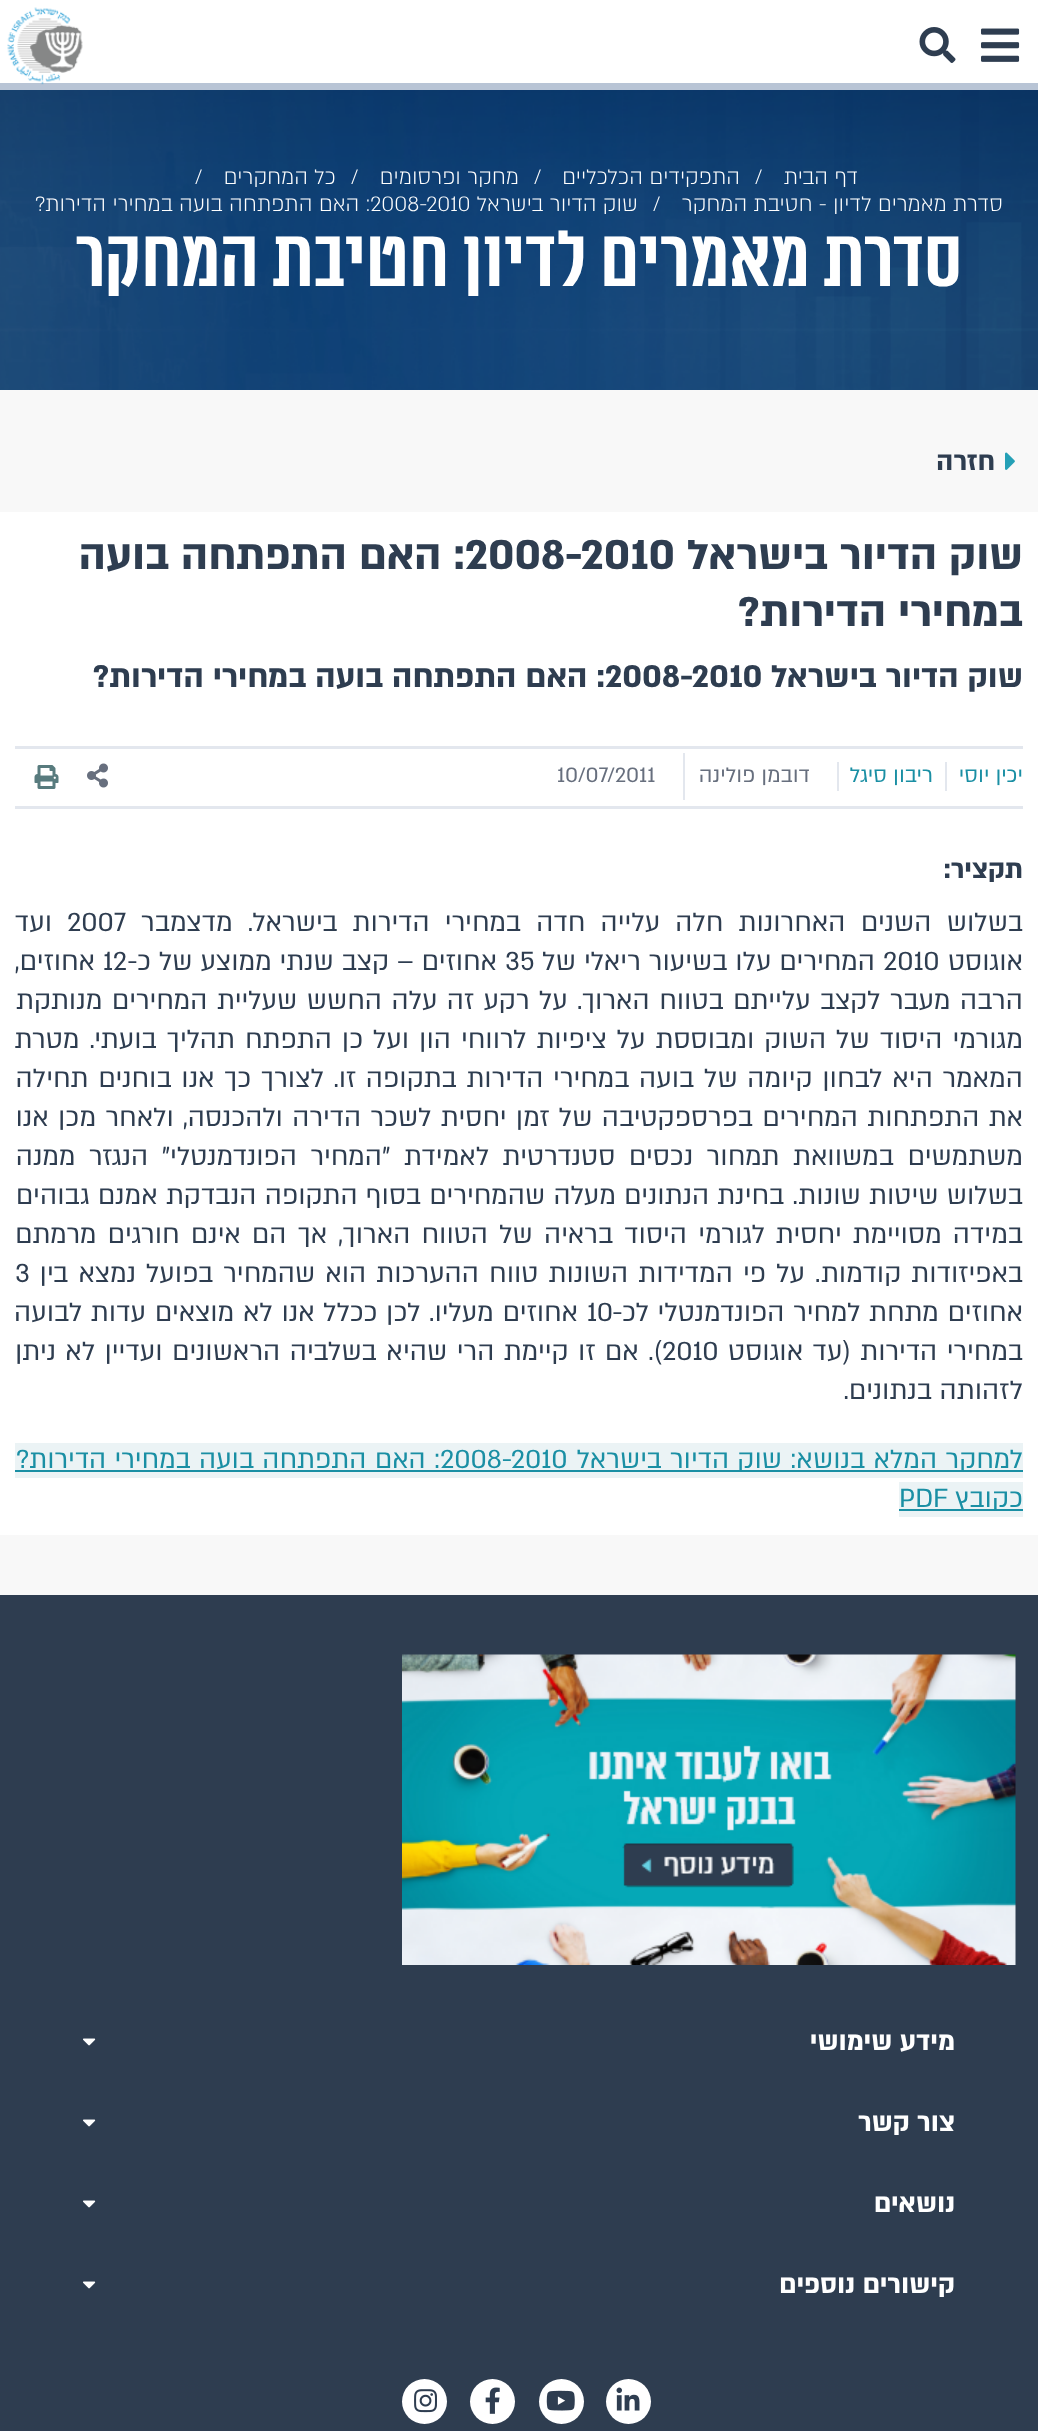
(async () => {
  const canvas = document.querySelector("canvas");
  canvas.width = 1038;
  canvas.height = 2431;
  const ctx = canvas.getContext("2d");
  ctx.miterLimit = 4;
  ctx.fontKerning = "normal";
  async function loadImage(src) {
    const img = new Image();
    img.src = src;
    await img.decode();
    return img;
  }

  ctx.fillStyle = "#f8f8f8";
  ctx.fillRect(0, 0, 1038, 2431);
  ctx.fillStyle = "#ffffff";
  ctx.fillRect(0, 0, 1038, 83);
  ctx.fillStyle = "#b8c4d5";
  ctx.fillRect(0, 83, 1038, 7);
  ctx.drawImage(await loadImage("img/1.png"), 981, 28, 39, 34);
  ctx.drawImage(await loadImage("img/2.png"), 919, 27, 37, 36);
  ctx.drawImage(await loadImage("img/3.png"), 7, 7, 76, 78);
  ctx.drawImage(await loadImage("img/4.png"), 0, 90, 1038, 300);
  ctx.drawImage(await loadImage("img/5.png"), 1005, 452, 10, 18);
  for (const [x, y, w, h, color] of [
    [0, 512, 1038, 1023, "#ffffff"],
    [15, 746, 1008, 3, "#e3e7ee"],
    [15, 806, 1008, 3, "#e3e7ee"],
    [945, 762, 2, 29, "#e3e7ee"],
    [837, 762, 2, 29, "#e3e7ee"],
    [683, 753, 2, 47, "#e3e7ee"],
  ]) {
    ctx.fillStyle = color;
    ctx.fillRect(x, y, w, h);
  }
  ctx.drawImage(await loadImage("img/6.png"), 87, 763, 21, 25);
  ctx.drawImage(await loadImage("img/7.png"), 34, 765, 25, 24);
  for (const [x, y, w, h, color] of [
    [15, 1443, 1008, 35, "#ebf3f5"],
    [15, 1470, 1008, 2, "#1a8fa4"],
    [899, 1482, 124, 35, "#ebf3f5"],
    [899, 1509, 124, 2, "#1a8fa4"],
    [0, 1595, 1038, 836, "#2e3d50"],
  ]) {
    ctx.fillStyle = color;
    ctx.fillRect(x, y, w, h);
  }
  ctx.drawImage(await loadImage("img/8.png"), 402, 1654, 614, 311);
  ctx.drawImage(await loadImage("img/9.png"), 83, 2038, 13, 8);
  ctx.drawImage(await loadImage("img/9.png"), 83, 2119, 13, 8);
  ctx.drawImage(await loadImage("img/9.png"), 83, 2200, 13, 8);
  ctx.drawImage(await loadImage("img/9.png"), 83, 2281, 13, 8);
  ctx.fillStyle = "#ffffff";
  ctx.beginPath();
  ctx.arc(628.5, 2401.5, 22.5, 0, Math.PI * 2);
  ctx.fill();
  ctx.drawImage(await loadImage("img/10.png"), 616, 2387, 24, 24);
  ctx.beginPath();
  ctx.arc(561.5, 2401.5, 22.5, 0, Math.PI * 2);
  ctx.fill();
  ctx.drawImage(await loadImage("img/11.png"), 546, 2390, 29, 21);
  ctx.beginPath();
  ctx.arc(492.5, 2401.5, 22.5, 0, Math.PI * 2);
  ctx.fill();
  ctx.drawImage(await loadImage("img/12.png"), 485, 2387, 15, 27);
  ctx.beginPath();
  ctx.arc(424.5, 2401.5, 22.5, 0, Math.PI * 2);
  ctx.fill();
  ctx.drawImage(await loadImage("img/13.png"), 414, 2389, 23, 24);
  ctx.direction = "rtl";
  ctx.font = "300 24px 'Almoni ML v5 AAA'";
  ctx.fillText("דף הבית", 858, 184);
  ctx.direction = "ltr";
  ctx.fillText("/", 755, 184);
  ctx.direction = "rtl";
  ctx.fillText("התפקידים הכלכליים", 740, 184);
  ctx.direction = "ltr";
  ctx.fillText("/", 534, 184);
  ctx.direction = "rtl";
  ctx.fillText("מחקר ופרסומים", 519, 184);
  ctx.direction = "ltr";
  ctx.fillText("/", 351, 184);
  ctx.direction = "rtl";
  ctx.fillText("כל המחקרים", 336, 184);
  ctx.direction = "ltr";
  ctx.fillText("/", 195, 184);
  ctx.direction = "rtl";
  ctx.fillText("סדרת מאמרים לדיון - חטיבת המחקר", 1003, 211);
  ctx.direction = "ltr";
  ctx.fillText("/", 653, 211);
  ctx.direction = "rtl";
  ctx.fillText("שוק הדיור בישראל", 638, 211);
  ctx.direction = "ltr";
  ctx.fillText("2008-2010", 370, 211);
  ctx.direction = "rtl";
  ctx.fillText(": האם התפתחה בועה במחירי הדירות?", 370, 211);
  ctx.font = "bold 82.5px 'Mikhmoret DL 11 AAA'";
  ctx.fillText("סדרת מאמרים לדיון חטיבת המחקר", 962, 286);
  ctx.font = "bold 30px 'Almoni ML v5 AAA'";
  ctx.fillStyle = "#2e3d50";
  ctx.fillText("חזרה", 995, 470);
  ctx.font = "bold 48px 'Almoni ML v5 AAA'";
  ctx.fillText("שוק הדיור בישראל", 1023, 569);
  ctx.direction = "ltr";
  ctx.fillText("2008-2010", 465, 569);
  ctx.direction = "rtl";
  ctx.fillText(": האם התפתחה בועה", 465, 569);
  ctx.fillText("במחירי הדירות?", 1023, 626);
  ctx.font = "bold 36px 'Almoni ML v5 AAA'";
  ctx.fillText("שוק הדיור בישראל", 1023, 687);
  ctx.direction = "ltr";
  ctx.fillText("2008-2010", 605, 687);
  ctx.direction = "rtl";
  ctx.fillText(": האם התפתחה בועה במחירי הדירות?", 605, 687);
  ctx.font = "24px 'Almoni ML v5 AAA'";
  ctx.fillStyle = "#1a8fa4";
  ctx.fillText("יכין יוסי", 1023, 782);
  ctx.fillText("ריבון סיגל", 933, 782);
  ctx.fillStyle = "#676f7e";
  ctx.fillText("דובמן פולינה", 810, 782);
  ctx.direction = "ltr";
  ctx.fillText("10/07/2011", 557, 782);
  ctx.direction = "rtl";
  ctx.font = "bold 30px 'Almoni ML v5 AAA'";
  ctx.fillStyle = "#2e3d50";
  ctx.fillText("תקציר:", 1023, 878);
  ctx.wordSpacing = "7.5px";
  ctx.font = "30px 'Almoni ML v5 AAA'";
  ctx.fillText("בשלוש השנים האחרונות חלה עלייה חדה במחירי הדירות בישראל. מדצמבר", 1023, 931);
  ctx.wordSpacing = "0px";
  ctx.direction = "ltr";
  ctx.fillText("2007", 67, 931);
  ctx.direction = "rtl";
  ctx.fillText("ועד", 52, 931);
  ctx.fillText("אוגוסט", 1023, 970);
  ctx.direction = "ltr";
  ctx.fillText("2010", 883, 970);
  ctx.wordSpacing = "0.25px";
  ctx.direction = "rtl";
  ctx.fillText("המחירים עלו בשיעור ריאלי של", 875, 970);
  ctx.wordSpacing = "0px";
  ctx.direction = "ltr";
  ctx.fillText("35", 505, 970);
  ctx.wordSpacing = "0.25px";
  ctx.direction = "rtl";
  ctx.fillText("אחוזים – קצב שנתי ממוצע של כ-", 497, 970);
  ctx.wordSpacing = "0px";
  ctx.direction = "ltr";
  ctx.fillText("12", 103, 970);
  ctx.direction = "rtl";
  ctx.fillText("אחוזים,", 95, 970);
  ctx.wordSpacing = "1.75px";
  ctx.fillText("הרבה מעבר לקצב עלייתם בטווח הארוך. על רקע זה עלה החשש שעליית המחירים מנותקת", 1023, 1009);
  ctx.wordSpacing = "2.25px";
  ctx.fillText("מגורמי היסוד של השוק ומבוססת על ציפיות לרווחי הון ועל כן התפתח תהליך בועתי. מטרת", 1023, 1048);
  ctx.wordSpacing = "2px";
  ctx.fillText("המאמר היא לבחון קיומה של בועה במחירי הדירות בתקופה זו. לצורך כך אנו בוחנים תחילה", 1023, 1087);
  ctx.wordSpacing = "1.6px";
  ctx.fillText("את התפתחות המחירים בפרספקטיבה של זמן יחסית לשכר הדירה ולהכנסה, ולאחר מכן אנו", 1023, 1126);
  ctx.wordSpacing = "5.75px";
  ctx.fillText("משתמשים במשוואת תמחור נכסים סטנדרטית לאמידת \"המחיר הפונדמנטלי\" הנגזר ממנה", 1023, 1165);
  ctx.wordSpacing = "0.5px";
  ctx.fillText("בשלוש שיטות שונות. בחינת הנתונים מעלה שהמחירים בסוף התקופה הנבדקת אמנם גבוהים", 1023, 1204);
  ctx.wordSpacing = "3.4px";
  ctx.fillText("במידה מסויימת יחסית לגורמי היסוד בראיה של הטווח הארוך, אך הם אינם חורגים מרמתם", 1023, 1243);
  ctx.wordSpacing = "2.4px";
  ctx.fillText("באפיזודות קודמות. על פי המדידות השונות טווח ההערכות הוא שהמחיר בפועל נמצא בין", 1023, 1282);
  ctx.wordSpacing = "0px";
  ctx.direction = "ltr";
  ctx.fillText("3", 15, 1282);
  ctx.wordSpacing = "1px";
  ctx.direction = "rtl";
  ctx.fillText("אחוזים מתחת למחיר הפונדמנטלי לכ-", 1023, 1321);
  ctx.wordSpacing = "0px";
  ctx.direction = "ltr";
  ctx.fillText("10", 587, 1321);
  ctx.wordSpacing = "1px";
  ctx.direction = "rtl";
  ctx.fillText("אחוזים מעליו. לכן ככלל אנו לא מוצאים עדות לבועה", 578, 1321);
  ctx.wordSpacing = "1.75px";
  ctx.fillText("במחירי הדירות (עד אוגוסט", 1023, 1360);
  ctx.wordSpacing = "0px";
  ctx.direction = "ltr";
  ctx.fillText("2010", 662, 1360);
  ctx.wordSpacing = "1.75px";
  ctx.direction = "rtl";
  ctx.fillText("). אם זו קיימת הרי שהיא בשלביה הראשונים ועדיין לא ניתן", 662, 1360);
  ctx.wordSpacing = "0px";
  ctx.fillText("לזהותה בנתונים.", 1023, 1399);
  ctx.wordSpacing = "0.5px";
  ctx.fillStyle = "#1a8fa4";
  ctx.fillText("למחקר המלא בנושא: שוק הדיור בישראל", 1023, 1468);
  ctx.wordSpacing = "0px";
  ctx.direction = "ltr";
  ctx.fillText("2008-2010", 440, 1468);
  ctx.wordSpacing = "0.5px";
  ctx.direction = "rtl";
  ctx.fillText(": האם התפתחה בועה במחירי הדירות?", 440, 1468);
  ctx.wordSpacing = "0px";
  ctx.fillText("כקובץ", 1023, 1507);
  ctx.direction = "ltr";
  ctx.fillText("PDF", 899, 1507);
  ctx.direction = "rtl";
  ctx.font = "bold 30px 'Almoni ML v5 AAA'";
  ctx.fillStyle = "#ffffff";
  for (const [text, x, y] of [
    ["מידע שימושי", 955, 2050],
    ["צור קשר", 955, 2131],
    ["נושאים", 955, 2212],
    ["קישורים נוספים", 955, 2293],
  ]) {
    ctx.fillText(text, x, y);
  }
})();
